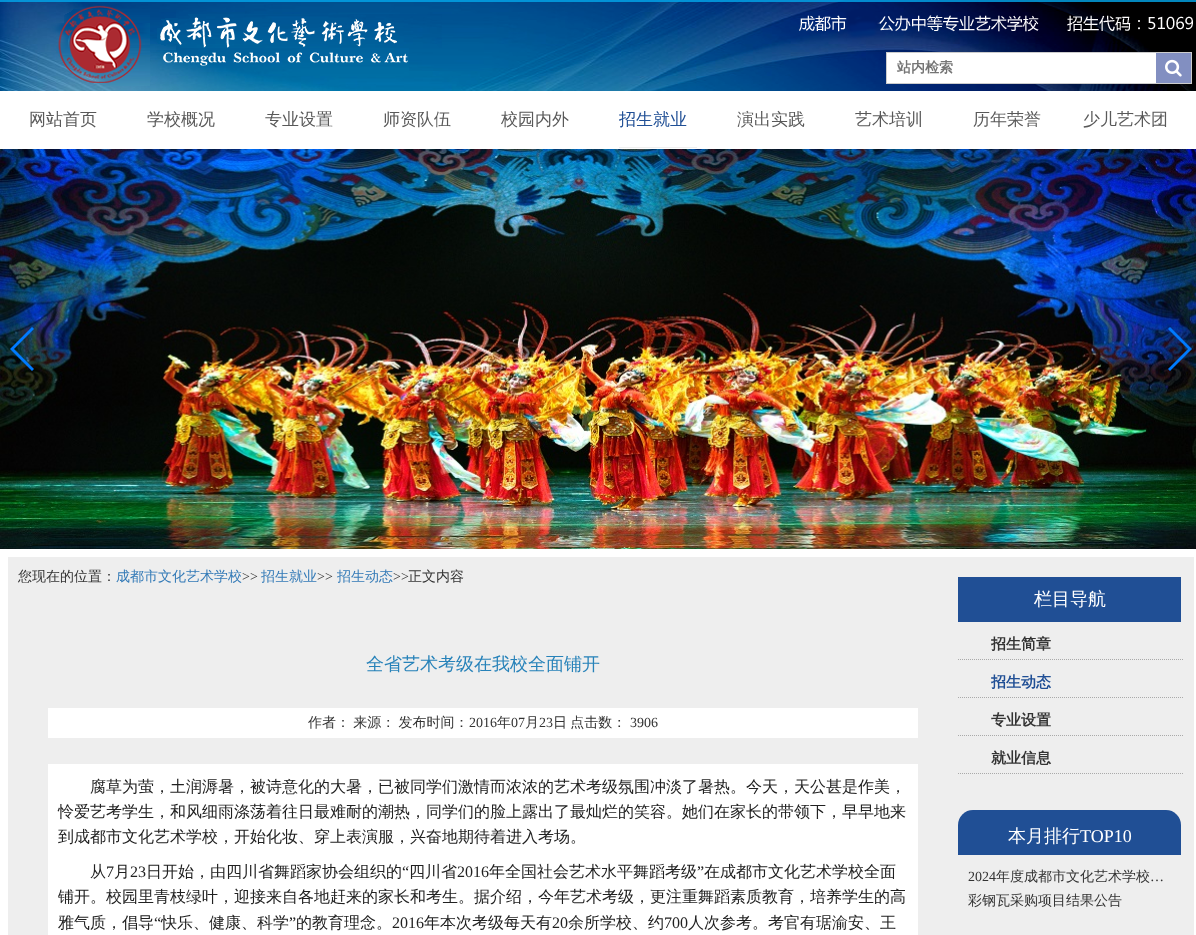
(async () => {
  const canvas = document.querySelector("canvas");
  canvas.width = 1196;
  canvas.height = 935;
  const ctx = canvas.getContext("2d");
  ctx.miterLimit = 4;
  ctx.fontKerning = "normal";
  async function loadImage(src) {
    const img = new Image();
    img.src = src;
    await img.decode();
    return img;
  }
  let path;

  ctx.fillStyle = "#ffffff";
  ctx.fillRect(0, 0, 1196, 935);
  ctx.drawImage(await loadImage("img/1.png"), 0, 0, 1196, 91);
  ctx.fillRect(887, 53, 269, 30);
  ctx.strokeStyle = "#cccccc";
  ctx.strokeRect(886.5, 52.5, 305, 31);
  ctx.fillStyle = "#828fc1";
  ctx.fillRect(1156, 53, 35, 30);
  ctx.drawImage(await loadImage("img/2.png"), 1165, 59, 17, 18);
  ctx.fillStyle = "#efefef";
  ctx.fillRect(619, 147, 78, 1);
  ctx.drawImage(await loadImage("img/3.png"), 0, 149, 1196, 400);
  ctx.fillStyle = "#007aff";
  path = new Path2D("M10 349L32 327L34 329L14 349L34 369L32 371Z");
  ctx.fill(path);
  path = new Path2D("M1192 349L1170 371L1168 369L1188 349L1168 329L1170 327Z");
  ctx.fill(path);
  for (const [x, y, w, h, color] of [
    [8, 557, 1186, 378, "#eeeeee"],
    [48, 708, 870, 30, "#ffffff"],
    [48, 764, 870, 171, "#ffffff"],
    [958, 577, 223, 45, "#204f95"],
  ]) {
    ctx.fillStyle = color;
    ctx.fillRect(x, y, w, h);
  }
  path = new Path2D("M958 659.5H1184");
  ctx.strokeStyle = "#aaaaaa";
  ctx.setLineDash([1, 1]);
  ctx.stroke(path);
  path = new Path2D("M958 697.5H1184");
  ctx.stroke(path);
  path = new Path2D("M958 735.5H1184");
  ctx.stroke(path);
  path = new Path2D("M958 773.5H1184");
  ctx.stroke(path);
  ctx.beginPath();
  ctx.roundRect(958, 810, 223, 45, [15, 15, 0, 0]);
  ctx.fill();
  ctx.font = "bold 14px WenQuanYi Zen Hei";
  ctx.fillStyle = "#757575";
  ctx.fillText("站内检索", 897, 72);
  ctx.font = "500 17px WenQuanYi Zen Hei";
  ctx.fillStyle = "#595959";
  for (const [text, x, y] of [
    ["网站首页", 29, 125],
    ["学校概况", 147, 125],
    ["专业设置", 265, 125],
    ["师资队伍", 383, 125],
    ["校园内外", 501, 125],
  ]) {
    ctx.fillText(text, x, y);
  }
  ctx.fillStyle = "#204f95";
  ctx.fillText("招生就业", 619, 125);
  ctx.fillStyle = "#595959";
  for (const [text, x, y] of [
    ["演出实践", 737, 125],
    ["艺术培训", 855, 125],
    ["历年荣誉", 973, 125],
    ["少儿艺术团", 1083, 125],
  ]) {
    ctx.fillText(text, x, y);
  }
  ctx.font = "500 14px WenQuanYi Zen Hei";
  ctx.fillStyle = "#333333";
  ctx.fillText("您现在的位置：", 18, 581);
  ctx.fillStyle = "#337ab7";
  ctx.fillText("成都市文化艺术学校", 116, 581);
  ctx.font = "14px Liberation Serif";
  ctx.fillStyle = "#333333";
  ctx.fillText(">>", 242, 581);
  ctx.font = "500 14px WenQuanYi Zen Hei";
  ctx.fillStyle = "#337ab7";
  ctx.fillText("招生就业", 261, 581);
  ctx.font = "14px Liberation Serif";
  ctx.fillStyle = "#333333";
  ctx.fillText(">>", 317, 581);
  ctx.font = "500 14px WenQuanYi Zen Hei";
  ctx.fillStyle = "#337ab7";
  ctx.fillText("招生动态", 337, 581);
  ctx.font = "14px Liberation Serif";
  ctx.fillStyle = "#333333";
  ctx.fillText(">>", 393, 581);
  ctx.font = "500 14px WenQuanYi Zen Hei";
  ctx.fillText("正文内容", 408, 581);
  ctx.font = "500 18px WenQuanYi Zen Hei";
  ctx.fillStyle = "#2782b9";
  ctx.fillText("全省艺术考级在我校全面铺开", 366, 670);
  ctx.wordSpacing = "-1px";
  ctx.font = "500 14px WenQuanYi Zen Hei";
  ctx.fillStyle = "#333333";
  ctx.fillText("作者： 来源： 发布时间：", 308, 727);
  ctx.wordSpacing = "0px";
  ctx.font = "14px Liberation Serif";
  ctx.fillText("2016", 469, 727);
  ctx.font = "500 14px WenQuanYi Zen Hei";
  ctx.fillText("年", 497, 727);
  ctx.font = "14px Liberation Serif";
  ctx.fillText("07", 511, 727);
  ctx.font = "500 14px WenQuanYi Zen Hei";
  ctx.fillText("月", 525, 727);
  ctx.font = "14px Liberation Serif";
  ctx.fillText("23", 539, 727);
  ctx.wordSpacing = "-1px";
  ctx.font = "500 14px WenQuanYi Zen Hei";
  ctx.fillText("日 点击数：", 553, 727);
  ctx.wordSpacing = "0px";
  ctx.font = "14px Liberation Serif";
  ctx.fillText("3906", 630, 727);
  ctx.font = "500 16px WenQuanYi Zen Hei";
  ctx.fillStyle = "#212121";
  for (const [text, x, y] of [
    ["腐草为萤，土润溽暑，被诗意化的大暑，已被同学们激情而浓浓的艺术考级氛围冲淡了暑热。今天，天公甚是作美，", 90, 792],
    ["怜爱艺考学生，和风细雨涤荡着往日最难耐的潮热，同学们的脸上露出了最灿烂的笑容。她们在家长的带领下，早早地来", 58, 817],
    ["到成都市文化艺术学校，开始化妆、穿上表演服，兴奋地期待着进入考场。", 58, 842],
    ["从", 90, 877],
  ]) {
    ctx.fillText(text, x, y);
  }
  ctx.font = "16px Liberation Serif";
  ctx.fillText("7", 106, 877);
  ctx.font = "500 16px WenQuanYi Zen Hei";
  ctx.fillText("月", 114, 877);
  ctx.font = "16px Liberation Serif";
  ctx.fillText("23", 130, 877);
  ctx.font = "500 16px WenQuanYi Zen Hei";
  ctx.fillText("日开始，由四川省舞蹈家协会组织的", 146, 877);
  ctx.font = "16px Liberation Serif";
  ctx.fillText("“", 402, 877);
  ctx.font = "500 16px WenQuanYi Zen Hei";
  ctx.fillText("四川省", 409, 877);
  ctx.font = "16px Liberation Serif";
  ctx.fillText("2016", 457, 877);
  ctx.font = "500 16px WenQuanYi Zen Hei";
  ctx.fillText("年全国社会艺术水平舞蹈考级", 489, 877);
  ctx.font = "16px Liberation Serif";
  ctx.fillText("”", 697, 877);
  ctx.font = "500 16px WenQuanYi Zen Hei";
  for (const [text, x, y] of [
    ["在成都市文化艺术学校全面", 704, 877],
    ["铺开。校园里青枝绿叶，迎接来自各地赶来的家长和考生。据介绍，今年艺术考级，更注重舞蹈素质教育，培养学生的高", 58, 902],
    ["雅气质，倡导", 58, 928],
  ]) {
    ctx.fillText(text, x, y);
  }
  ctx.font = "16px Liberation Serif";
  ctx.fillText("“", 154, 928);
  ctx.font = "500 16px WenQuanYi Zen Hei";
  ctx.fillText("快乐、健康、科学", 161, 928);
  ctx.font = "16px Liberation Serif";
  ctx.fillText("”", 289, 928);
  ctx.font = "500 16px WenQuanYi Zen Hei";
  ctx.fillText("的教育理念。", 296, 928);
  ctx.font = "16px Liberation Serif";
  ctx.fillText("2016", 392, 928);
  ctx.font = "500 16px WenQuanYi Zen Hei";
  ctx.fillText("年本次考级每天有", 424, 928);
  ctx.font = "16px Liberation Serif";
  ctx.fillText("20", 552, 928);
  ctx.font = "500 16px WenQuanYi Zen Hei";
  ctx.fillText("余所学校、约", 568, 928);
  ctx.font = "16px Liberation Serif";
  ctx.fillText("700", 664, 928);
  ctx.font = "500 16px WenQuanYi Zen Hei";
  ctx.fillText("人次参考。考官有琚渝安、王", 688, 928);
  ctx.font = "500 18px WenQuanYi Zen Hei";
  ctx.fillStyle = "#ffffff";
  ctx.fillText("栏目导航", 1034, 605);
  ctx.font = "bold 15px WenQuanYi Zen Hei";
  ctx.fillStyle = "#333333";
  ctx.fillText("招生简章", 991, 649);
  ctx.fillStyle = "#204f95";
  ctx.fillText("招生动态", 991, 687);
  ctx.fillStyle = "#333333";
  ctx.fillText("专业设置", 991, 725);
  ctx.fillText("就业信息", 991, 763);
  ctx.font = "500 18px WenQuanYi Zen Hei";
  ctx.fillStyle = "#ffffff";
  ctx.fillText("本月排行", 1008, 842);
  ctx.font = "18px Liberation Serif";
  ctx.fillText("TOP10", 1080, 842);
  ctx.font = "14px Liberation Serif";
  ctx.fillStyle = "#333333";
  ctx.fillText("2024", 968, 881);
  ctx.font = "500 14px WenQuanYi Zen Hei";
  ctx.fillText("年度成都市文化艺术学校", 996, 881);
  ctx.font = "14px Liberation Serif";
  ctx.fillText("…", 1150, 881);
  ctx.font = "500 14px WenQuanYi Zen Hei";
  ctx.fillText("彩钢瓦采购项目结果公告", 968, 905);
})();
